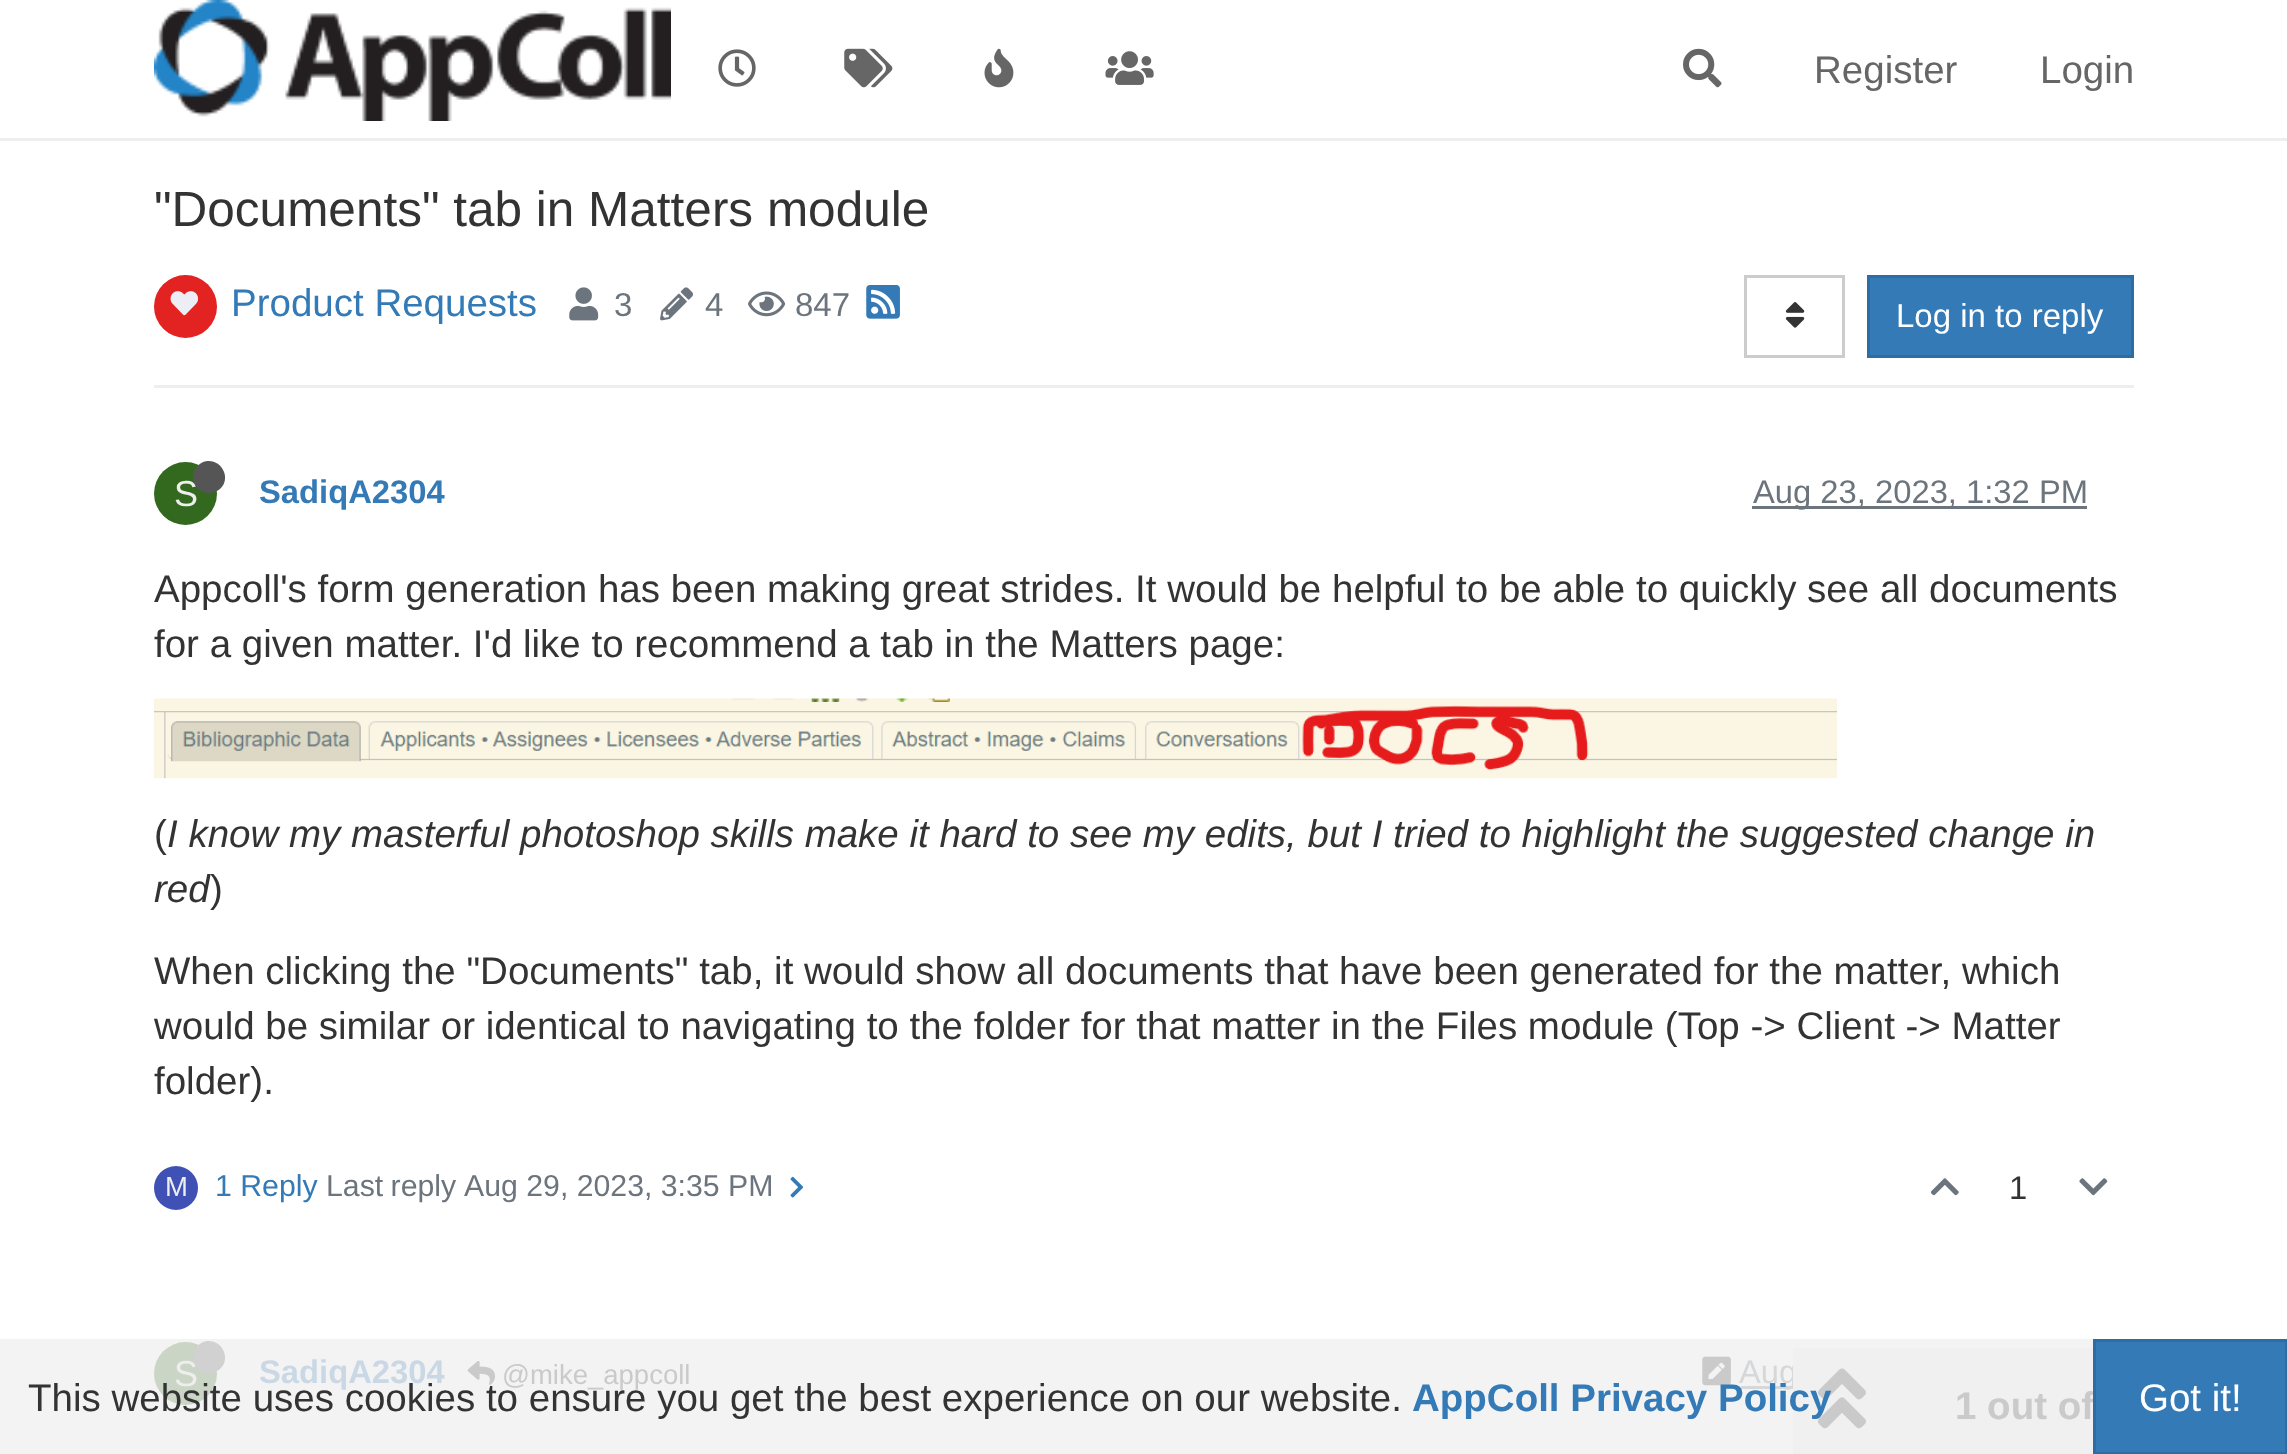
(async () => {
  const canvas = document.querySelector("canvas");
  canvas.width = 2287;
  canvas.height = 1454;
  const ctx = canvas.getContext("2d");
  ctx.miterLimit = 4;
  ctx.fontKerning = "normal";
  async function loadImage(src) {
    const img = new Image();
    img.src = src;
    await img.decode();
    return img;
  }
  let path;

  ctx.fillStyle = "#ffffff";
  ctx.fillRect(0, 0, 2287, 1454);
  ctx.fillStyle = "#f3f3f3";
  ctx.fillRect(0, 1339, 2093, 115);
  ctx.fillStyle = "#eeeeee";
  ctx.fillRect(0, 138, 2287, 3);
  ctx.drawImage(await loadImage("img/1.png"), 154, 0, 517, 121);
  ctx.drawImage(await loadImage("img/2.png"), 718, 49, 38, 38);
  ctx.drawImage(await loadImage("img/3.png"), 844, 48, 49, 40);
  ctx.drawImage(await loadImage("img/4.png"), 984, 48, 30, 40);
  ctx.drawImage(await loadImage("img/5.png"), 1105, 51, 49, 34);
  ctx.drawImage(await loadImage("img/6.png"), 1683, 48, 39, 40);
  ctx.fillRect(154, 385, 1980, 3);
  ctx.fillStyle = "#e32222";
  ctx.beginPath();
  ctx.arc(185.5, 306.5, 31.5, 0, Math.PI * 2);
  ctx.fill();
  ctx.drawImage(await loadImage("img/7.png"), 170, 291, 29, 25);
  ctx.drawImage(await loadImage("img/8.png"), 569, 287, 30, 34);
  ctx.drawImage(await loadImage("img/9.png"), 660, 287, 33, 34);
  ctx.drawImage(await loadImage("img/10.png"), 748, 291, 38, 26);
  ctx.drawImage(await loadImage("img/11.png"), 866, 285, 34, 34);
  ctx.strokeStyle = "#cccccc";
  ctx.lineWidth = 3;
  ctx.strokeRect(1745.5, 276.5, 98, 80);
  ctx.drawImage(await loadImage("img/12.png"), 1785, 302, 20, 26);
  ctx.fillStyle = "#337ab7";
  ctx.beginPath();
  ctx.rect(1868.5, 276.5, 264, 80);
  ctx.fill();
  ctx.strokeStyle = "#2e6da4";
  ctx.stroke();
  ctx.fillStyle = "#33691e";
  ctx.beginPath();
  ctx.arc(185.5, 493.5, 31.5, 0, Math.PI * 2);
  ctx.fill();
  ctx.fillStyle = "#6c757d";
  ctx.fillRect(1752, 506, 335, 3);
  ctx.drawImage(await loadImage("img/13.png"), 154, 698, 1683, 81);
  ctx.fillStyle = "#3f51b5";
  ctx.beginPath();
  ctx.arc(176, 1188, 22, 0, Math.PI * 2);
  ctx.fill();
  ctx.drawImage(await loadImage("img/14.png"), 790, 1176, 14, 22);
  ctx.drawImage(await loadImage("img/15.png"), 1930, 1178, 29, 18);
  ctx.drawImage(await loadImage("img/16.png"), 2079, 1178, 29, 18);
  ctx.fillStyle = "#cad5c6";
  ctx.beginPath();
  ctx.arc(185.5, 1373.5, 31.5, 0, Math.PI * 2);
  ctx.fill();
  ctx.drawImage(await loadImage("img/17.png"), 467, 1360, 29, 25);
  ctx.drawImage(await loadImage("img/18.png"), 1702, 1356, 29, 30);
  ctx.fillStyle = "#d6d7d9";
  ctx.fillRect(1741, 1386, 52, 3);
  ctx.font = "38.5px Liberation Sans";
  ctx.fillStyle = "#666666";
  ctx.fillText("Register", 1814, 83);
  ctx.fillText("Login", 2040, 83);
  ctx.font = "49.5px Liberation Sans";
  ctx.fillStyle = "#333333";
  ctx.fillText("\"Documents\" tab in Matters module", 154, 226);
  ctx.font = "38.5px Liberation Sans";
  ctx.fillStyle = "#337ab7";
  ctx.fillText("Product Requests", 231, 316);
  ctx.font = "33px Liberation Sans";
  ctx.fillStyle = "#6c757d";
  for (const [text, x, y] of [
    ["3", 614, 316],
    ["4", 705, 316],
    ["847", 795, 316],
  ]) {
    ctx.fillText(text, x, y);
  }
  ctx.fillStyle = "#ffffff";
  ctx.fillText("Log in to reply", 1896, 327);
  ctx.font = "36px Liberation Sans";
  ctx.fillStyle = "#eeeeee";
  ctx.fillText("S", 174, 506);
  ctx.fillStyle = "#555555";
  path = new Path2D("M197.5 466C200.5 463 203.5 461.5 207.5 461C222 460 231 478 220.5 488.5C217.5 491 214.5 492.5 210.5 493C196 494.5 187 476.5 197.5 466Z");
  ctx.fill(path);
  ctx.font = "bold 32.75px Liberation Sans";
  ctx.fillStyle = "#337ab7";
  ctx.fillText("SadiqA2304", 259, 503);
  ctx.font = "32.75px Liberation Sans";
  ctx.fillStyle = "#6c757d";
  ctx.fillText("Aug 23, 2023, 1:32 PM", 1753, 503);
  ctx.font = "38.5px Liberation Sans";
  ctx.fillStyle = "#333333";
  for (const [text, x, y] of [
    ["Appcoll's form generation has been making great strides. It would be helpful to be able to quickly see all documents", 154, 602],
    ["for a given matter. I'd like to recommend a tab in the Matters page:", 154, 657],
    ["(", 154, 847],
  ]) {
    ctx.fillText(text, x, y);
  }
  ctx.font = "italic 38.5px Liberation Sans";
  ctx.fillText("I know my masterful photoshop skills make it hard to see my edits, but I tried to highlight the suggested change in", 167, 847);
  ctx.fillText("red", 154, 902);
  ctx.font = "38.5px Liberation Sans";
  for (const [text, x, y] of [
    [")", 210, 902],
    ["When clicking the \"Documents\" tab, it would show all documents that have been generated for the matter, which", 154, 984],
    ["would be similar or identical to navigating to the folder for that matter in the Files module (Top -> Client -> Matter", 154, 1039],
    ["folder).", 154, 1094],
  ]) {
    ctx.fillText(text, x, y);
  }
  ctx.font = "27.5px Liberation Sans";
  ctx.fillStyle = "#eeeeee";
  ctx.fillText("M", 165, 1196);
  ctx.font = "30.25px Liberation Sans";
  ctx.fillStyle = "#337ab7";
  ctx.fillText("1 Reply", 215, 1196);
  ctx.wordSpacing = "-1px";
  ctx.fillStyle = "#6c757d";
  ctx.fillText("Last reply", 326, 1196);
  ctx.wordSpacing = "0px";
  ctx.fillText("Aug 29, 2023, 3:35 PM", 464, 1196);
  ctx.font = "32.75px Liberation Sans";
  ctx.fillStyle = "#333333";
  ctx.fillText("1", 2009, 1199);
  ctx.font = "36px Liberation Sans";
  ctx.fillStyle = "#eeeeee";
  ctx.fillText("S", 174, 1386);
  ctx.fillStyle = "#d1d1d1";
  path = new Path2D("M197.5 1346C200.5 1343 203.5 1341.5 207.5 1341C222 1340 231 1358 220.5 1368.5C217.5 1371 214.5 1372.5 210.5 1373C196 1374.5 187 1356.5 197.5 1346Z");
  ctx.fill(path);
  ctx.font = "bold 32.75px Liberation Sans";
  ctx.fillStyle = "#cad8e5";
  ctx.fillText("SadiqA2304", 259, 1383);
  ctx.font = "27.5px Liberation Sans";
  ctx.fillStyle = "#cacaca";
  ctx.fillText("@mike_appcoll", 502, 1384);
  ctx.font = "32.75px Liberation Sans";
  ctx.fillStyle = "#d6d7d9";
  ctx.fillText("Aug", 1739, 1383);
  ctx.fillStyle = "#f0f0f0";
  ctx.fillRect(1793, 1348, 300, 106);
  ctx.drawImage(await loadImage("img/19.png"), 1817, 1368, 49, 61);
  ctx.font = "bold 38.5px Liberation Sans";
  ctx.fillStyle = "#cacaca";
  ctx.fillText("1 out of", 1955, 1419);
  ctx.font = "38.5px Liberation Sans";
  ctx.fillStyle = "#333333";
  ctx.fillText("This website uses cookies to ensure you get the best experience on our website.", 28, 1411);
  ctx.font = "bold 38.5px Liberation Sans";
  ctx.fillStyle = "#337ab7";
  ctx.fillText("AppColl Privacy Policy", 1412, 1411);
  ctx.beginPath();
  ctx.rect(2094.5, 1340.5, 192, 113);
  ctx.fill();
  ctx.stroke();
  ctx.font = "38.5px Liberation Sans";
  ctx.fillStyle = "#ffffff";
  ctx.fillText("Got it!", 2139, 1411);
})();
